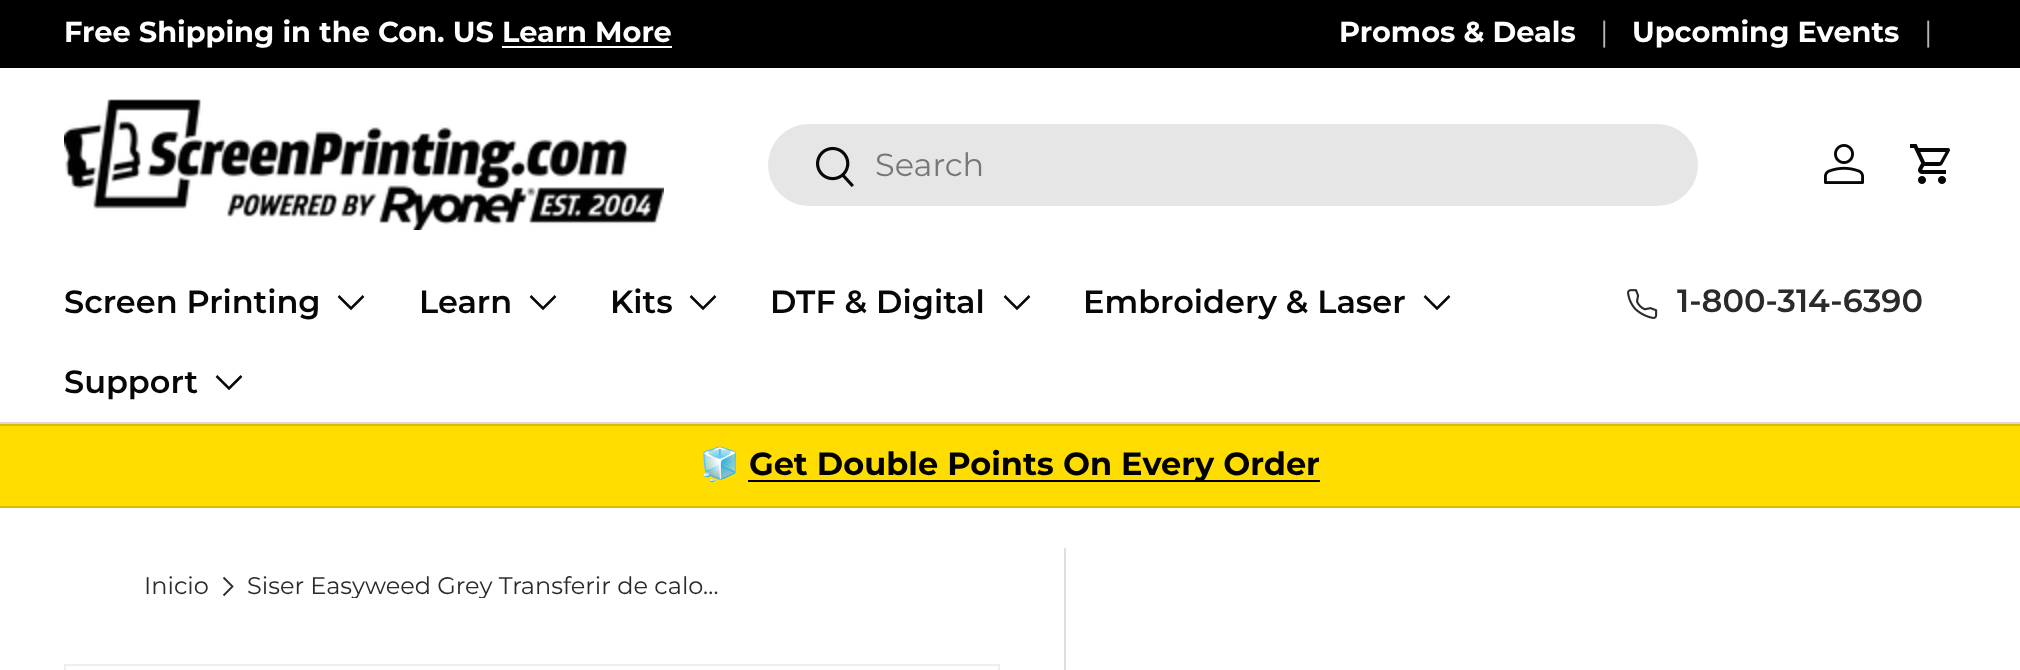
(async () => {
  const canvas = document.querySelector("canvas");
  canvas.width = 2020;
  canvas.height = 670;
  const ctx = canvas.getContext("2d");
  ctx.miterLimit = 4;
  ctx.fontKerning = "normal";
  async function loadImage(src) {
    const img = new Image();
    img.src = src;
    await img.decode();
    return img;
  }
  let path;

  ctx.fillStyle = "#ffffff";
  ctx.fillRect(0, 0, 2020, 670);
  for (const [x, y, w, h, color] of [
    [0, 0, 2020, 68, "#000000"],
    [502, 46, 170, 2, "#ffffff"],
    [0, 422, 2020, 2, "#dadada"],
  ]) {
    ctx.fillStyle = color;
    ctx.fillRect(x, y, w, h);
  }
  ctx.drawImage(await loadImage("img/1.png"), 64, 99, 600, 131);
  ctx.fillStyle = "#e6e6e6";
  ctx.beginPath();
  ctx.roundRect(768, 124, 930, 82, 41);
  ctx.fill();
  ctx.drawImage(await loadImage("img/2.png"), 816, 146, 38, 41);
  ctx.drawImage(await loadImage("img/3.png"), 1824, 144, 40, 40);
  ctx.drawImage(await loadImage("img/4.png"), 1910, 144, 40, 40);
  path = new Path2D("M363.5 296L351 308.5L338.5 296");
  ctx.strokeStyle = "#070707";
  ctx.lineWidth = 2.5;
  ctx.stroke(path);
  path = new Path2D("M555.5 296L543 308.5L530.5 296");
  ctx.stroke(path);
  path = new Path2D("M715.5 296L703 308.5L690.5 296");
  ctx.stroke(path);
  path = new Path2D("M1029.5 296L1017 308.5L1004.5 296");
  ctx.stroke(path);
  path = new Path2D("M1449.5 296L1437 308.5L1424.5 296");
  ctx.stroke(path);
  path = new Path2D("M241.5 376L229 388.5L216.5 376");
  ctx.stroke(path);
  ctx.drawImage(await loadImage("img/5.png"), 1627, 289, 31, 30);
  for (const [x, y, w, h, color] of [
    [0, 426, 2020, 80, "#ffdd00"],
    [0, 424, 2020, 2, "#d9bc00"],
    [0, 506, 2020, 2, "#d9bc00"],
    [748, 480, 572, 2, "#000000"],
  ]) {
    ctx.fillStyle = color;
    ctx.fillRect(x, y, w, h);
  }
  ctx.strokeStyle = "#eeeeee";
  ctx.lineWidth = 2;
  ctx.strokeRect(65, 665, 934, 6);
  ctx.fillStyle = "#dfdfdf";
  ctx.fillRect(1064, 548, 2, 122);
  path = new Path2D("M223.5 577.5L232.5 586.5L223.5 595.5");
  ctx.strokeStyle = "#2a2b2a";
  ctx.lineWidth = 1.8;
  ctx.stroke(path);
  ctx.font = "bold 28.8px Montserrat";
  ctx.fillStyle = "#ffffff";
  ctx.fillText("Free Shipping in the Con. US Learn More", 64, 42);
  ctx.fillText("Promos & Deals", 1339, 42);
  ctx.font = "100 28.8px Montserrat";
  ctx.fillStyle = "#b3b3b3";
  ctx.fillText("|", 1600, 42);
  ctx.font = "bold 28.8px Montserrat";
  ctx.fillStyle = "#ffffff";
  ctx.fillText("Upcoming Events", 1632, 42);
  ctx.font = "100 28.8px Montserrat";
  ctx.fillStyle = "#b3b3b3";
  ctx.fillText("|", 1924, 42);
  ctx.font = "100 32px Montserrat";
  ctx.fillStyle = "#777777";
  ctx.fillText("Search", 875, 176);
  ctx.font = "600 32px Montserrat";
  ctx.fillStyle = "#070707";
  for (const [text, x, y] of [
    ["Screen Printing", 64, 313],
    ["Learn", 419, 313],
    ["Kits", 610, 313],
    ["DTF & Digital", 770, 313],
    ["Embroidery & Laser", 1083, 313],
    ["Support", 64, 393],
  ]) {
    ctx.fillText(text, x, y);
  }
  ctx.fillStyle = "#2a2b2a";
  ctx.fillText("1-800-314-6390", 1677, 312);
  ctx.font = "32px Noto Color Emoji";
  ctx.fillStyle = "#000000";
  ctx.fillText("🧊", 700, 475);
  ctx.font = "bold 32px Montserrat";
  ctx.fillText("Get Double Points On Every Order", 749, 475);
  ctx.font = "100 24px Montserrat";
  ctx.fillStyle = "#2a2b2a";
  ctx.fillText("Inicio", 144, 594);
  ctx.save();
  ctx.beginPath();
  ctx.rect(246, 574, 480, 24);
  ctx.clip();
  ctx.fillText("Siser Easyweed Grey Transferir de calo…", 247, 594);
  ctx.restore();
})();
